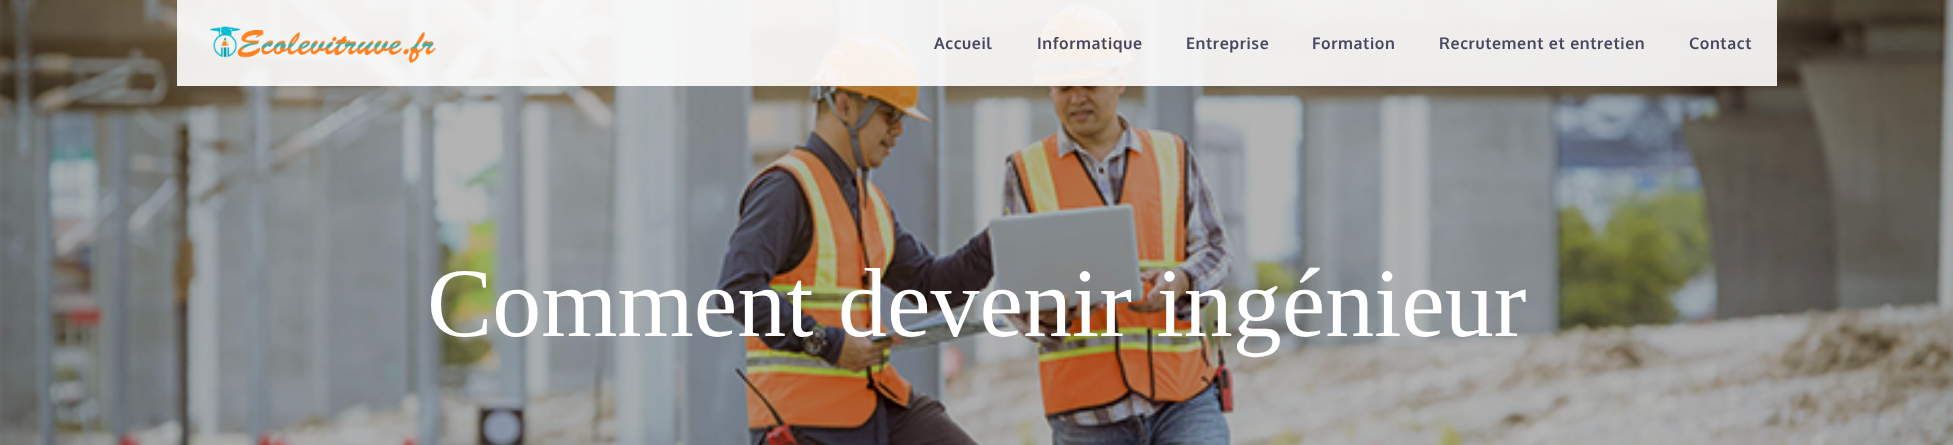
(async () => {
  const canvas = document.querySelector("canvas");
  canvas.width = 1953;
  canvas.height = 445;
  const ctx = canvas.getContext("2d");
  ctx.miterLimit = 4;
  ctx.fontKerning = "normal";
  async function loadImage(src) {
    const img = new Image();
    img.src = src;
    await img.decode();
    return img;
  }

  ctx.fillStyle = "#ffffff";
  ctx.fillRect(0, 0, 1953, 445);
  ctx.drawImage(await loadImage("img/2.png"), 0, 0, 1953, 445);
  ctx.fillStyle = "rgba(255, 255, 255, 0.9)";
  ctx.fillRect(177, 0, 1600, 86);
  ctx.drawImage(await loadImage("img/1.png"), 210, 26, 226, 38);
  ctx.letterSpacing = "0.6px";
  ctx.font = "bold 16px Oxygen";
  ctx.fillStyle = "#46485f";
  for (const [text, x, y] of [
    ["Accueil", 934, 49],
    ["Informatique", 1037, 49],
    ["Entreprise", 1186, 49],
    ["Formation", 1312, 49],
    ["Recrutement et entretien", 1439, 49],
    ["Contact", 1689, 49],
  ]) {
    ctx.fillText(text, x, y);
  }
  ctx.letterSpacing = "0px";
  ctx.font = "98px Liberation Serif";
  ctx.fillStyle = "#ffffff";
  ctx.fillText("Comment devenir ingénieur", 427, 336);
})();
